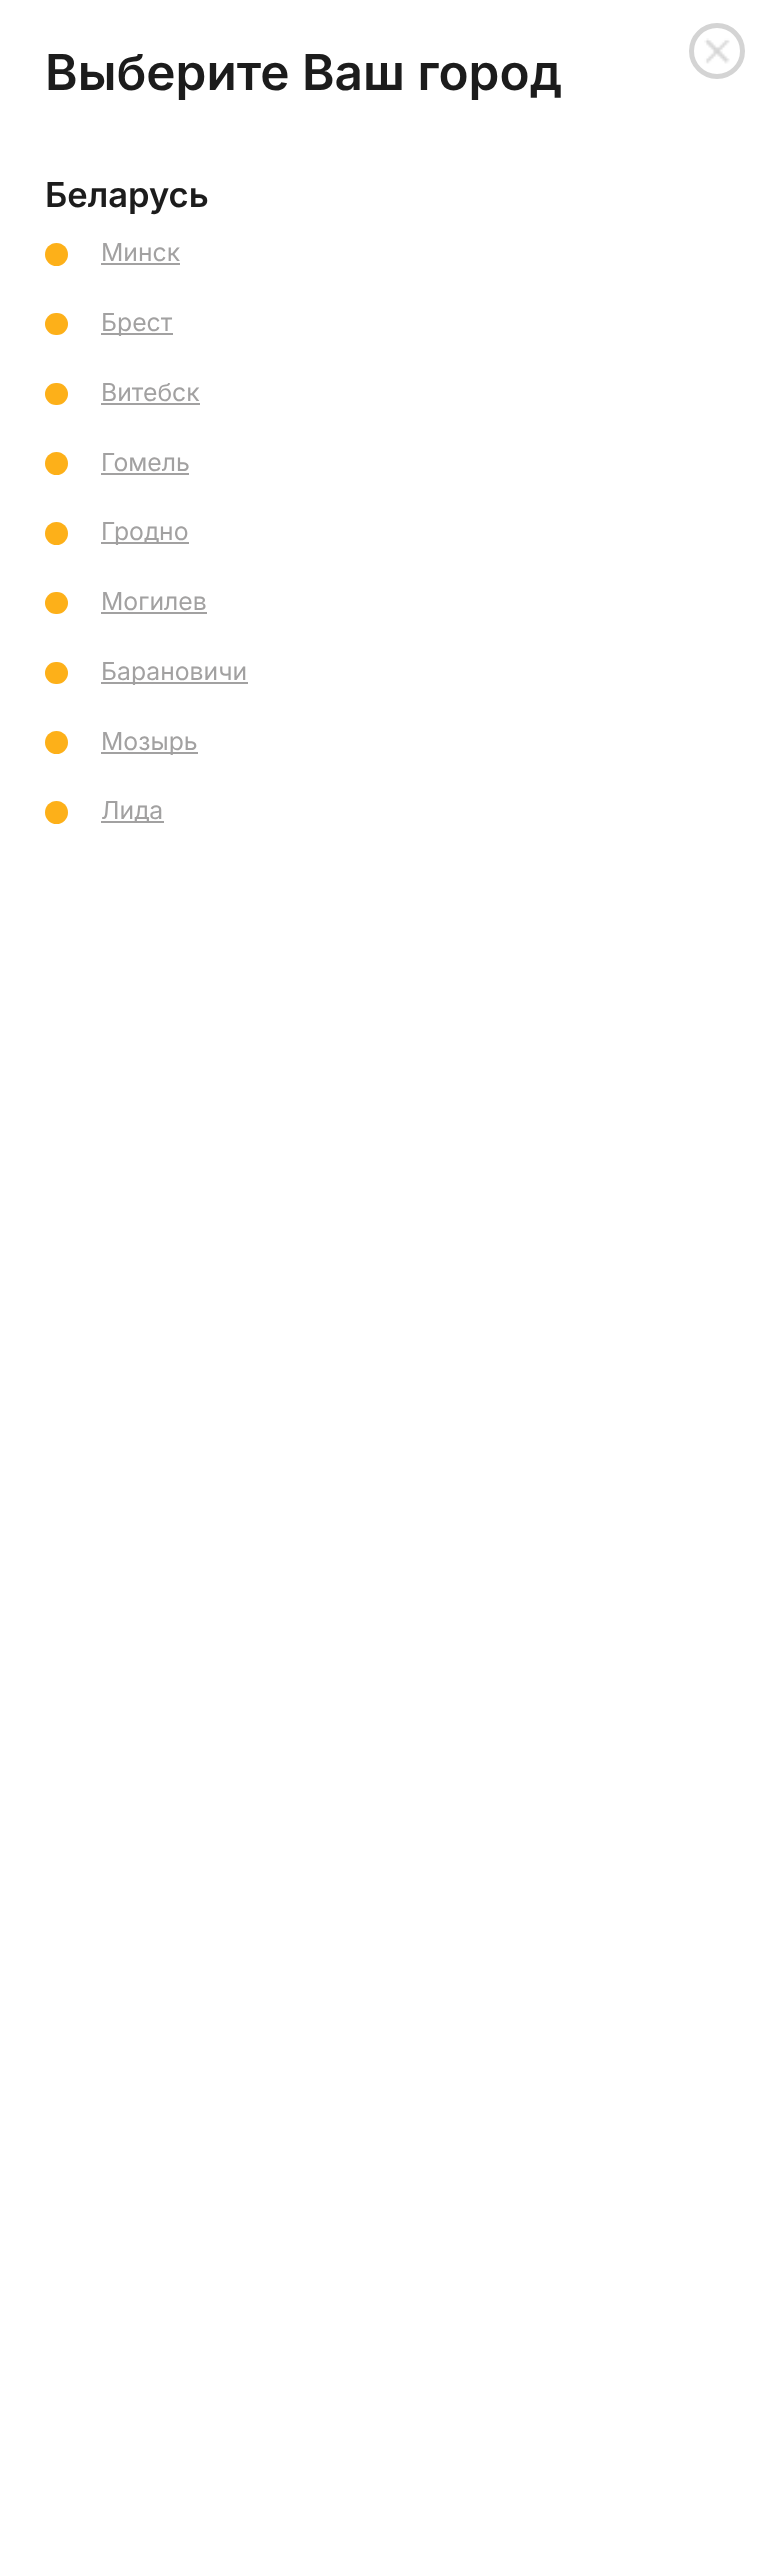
(async () => {
  const canvas = document.querySelector("canvas");
  canvas.width = 767;
  canvas.height = 2568;
  const ctx = canvas.getContext("2d");
  ctx.miterLimit = 4;
  ctx.fontKerning = "normal";
  async function loadImage(src) {
    const img = new Image();
    img.src = src;
    await img.decode();
    return img;
  }

  ctx.fillStyle = "#ffffff";
  ctx.fillRect(0, 0, 767, 2568);
  ctx.fillStyle = "#fdb019";
  ctx.beginPath();
  ctx.arc(56.5, 254.5, 11.5, 0, Math.PI * 2);
  ctx.fill();
  ctx.fillStyle = "#a2a1a1";
  ctx.fillRect(101, 263, 79, 2);
  ctx.fillStyle = "#fdb019";
  ctx.beginPath();
  ctx.roundRect(45, 313, 23, 22, 11);
  ctx.fill();
  ctx.fillStyle = "#a2a1a1";
  ctx.fillRect(101, 333, 72, 2);
  ctx.fillStyle = "#fdb019";
  ctx.beginPath();
  ctx.roundRect(45, 383, 23, 22, 11);
  ctx.fill();
  ctx.fillStyle = "#a2a1a1";
  ctx.fillRect(101, 403, 99, 2);
  ctx.fillStyle = "#fdb019";
  ctx.beginPath();
  ctx.arc(56.5, 463.5, 11.5, 0, Math.PI * 2);
  ctx.fill();
  ctx.fillStyle = "#a2a1a1";
  ctx.fillRect(101, 473, 88, 2);
  ctx.fillStyle = "#fdb019";
  ctx.beginPath();
  ctx.arc(56.5, 533.5, 11.5, 0, Math.PI * 2);
  ctx.fill();
  ctx.fillStyle = "#a2a1a1";
  ctx.fillRect(101, 542, 88, 2);
  ctx.fillStyle = "#fdb019";
  ctx.beginPath();
  ctx.roundRect(45, 592, 23, 22, 11);
  ctx.fill();
  ctx.fillStyle = "#a2a1a1";
  ctx.fillRect(101, 612, 106, 2);
  ctx.fillStyle = "#fdb019";
  ctx.beginPath();
  ctx.roundRect(45, 662, 23, 22, 11);
  ctx.fill();
  ctx.fillStyle = "#a2a1a1";
  ctx.fillRect(101, 682, 147, 2);
  ctx.fillStyle = "#fdb019";
  ctx.beginPath();
  ctx.arc(56.5, 742.5, 11.5, 0, Math.PI * 2);
  ctx.fill();
  ctx.fillStyle = "#a2a1a1";
  ctx.fillRect(101, 752, 97, 2);
  ctx.fillStyle = "#fdb019";
  ctx.beginPath();
  ctx.arc(56.5, 812.5, 11.5, 0, Math.PI * 2);
  ctx.fill();
  ctx.fillStyle = "#a2a1a1";
  ctx.fillRect(101, 821, 63, 2);
  ctx.beginPath();
  ctx.arc(717, 51, 25.5, 0, Math.PI * 2);
  ctx.strokeStyle = "#d4d4d4";
  ctx.lineWidth = 5;
  ctx.stroke();
  ctx.drawImage(await loadImage("img/1.png"), 704, 38, 26, 26);
  ctx.font = "600 49.5px Inter";
  ctx.fillStyle = "#1c1c1c";
  ctx.fillText("Выберите Ваш город", 45, 90);
  ctx.font = "600 34.5px Inter";
  ctx.fillText("Беларусь", 45, 207);
  ctx.font = "24.75px Inter";
  ctx.fillStyle = "#a2a1a1";
  for (const [text, x, y] of [
    ["Минск", 101, 261],
    ["Брест", 101, 331],
    ["Витебск", 101, 401],
    ["Гомель", 101, 471],
    ["Гродно", 101, 540],
    ["Могилев", 101, 610],
    ["Барановичи", 101, 680],
    ["Мозырь", 101, 750],
    ["Лида", 101, 819],
  ]) {
    ctx.fillText(text, x, y);
  }
})();
